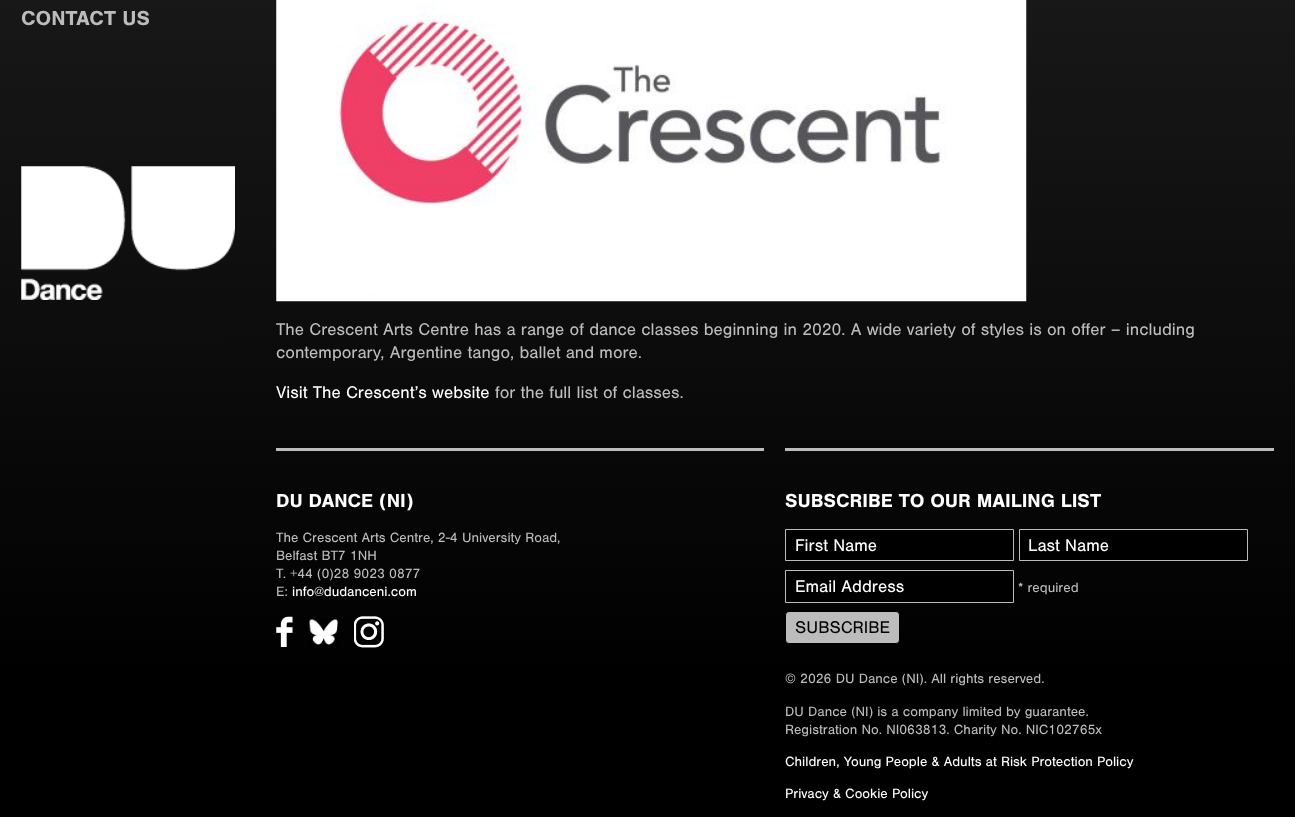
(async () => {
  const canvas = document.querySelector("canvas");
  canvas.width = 1295;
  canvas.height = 817;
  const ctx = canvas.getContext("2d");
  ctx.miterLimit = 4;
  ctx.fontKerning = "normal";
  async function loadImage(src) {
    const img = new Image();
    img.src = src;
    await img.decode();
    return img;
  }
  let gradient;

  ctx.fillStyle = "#ffffff";
  ctx.fillRect(0, 0, 1295, 817);
  gradient = ctx.createLinearGradient(647, -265, 648, 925);
  gradient.addColorStop(0, "#212121");
  gradient.addColorStop(0.8, "#000000");
  ctx.fillStyle = gradient;
  ctx.fillRect(0, 0, 1295, 817);
  ctx.drawImage(await loadImage("img/1.png"), 21, 166, 214, 134);
  ctx.drawImage(await loadImage("img/2.png"), 276, 0, 751, 302);
  ctx.fillStyle = "#bcbcbc";
  ctx.fillRect(276, 448, 488, 3);
  ctx.drawImage(await loadImage("img/3.png"), 276, 616, 17, 31);
  ctx.drawImage(await loadImage("img/4.png"), 309, 619, 29, 26);
  ctx.drawImage(await loadImage("img/5.png"), 354, 616, 30, 32);
  ctx.fillRect(785, 448, 489, 3);
  ctx.fillStyle = "#000000";
  ctx.beginPath();
  ctx.rect(785.5, 529.5, 228, 31);
  ctx.fill();
  ctx.strokeStyle = "#bcbcbc";
  ctx.stroke();
  ctx.beginPath();
  ctx.rect(1019.5, 529.5, 228, 31);
  ctx.fill();
  ctx.stroke();
  ctx.beginPath();
  ctx.rect(785.5, 570.5, 228, 32);
  ctx.fill();
  ctx.stroke();
  ctx.fillStyle = "#bcbcbc";
  ctx.beginPath();
  ctx.roundRect(785.5, 611.5, 114, 32, 3.5);
  ctx.fill();
  ctx.strokeStyle = "#000000";
  ctx.stroke();
  ctx.font = "bold 21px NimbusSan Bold";
  ctx.fillText("CONTACT US", 21, 25);
  ctx.font = "17.5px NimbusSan";
  ctx.fillText("The Crescent Arts Centre has a range of dance classes beginning in 2020. A wide variety of styles is on offer – including", 276, 335);
  ctx.fillText("contemporary, Argentine tango, ballet and more.", 276, 358);
  ctx.fillStyle = "#ffffff";
  ctx.fillText("Visit The Crescent’s website", 276, 398);
  ctx.fillStyle = "#bcbcbc";
  ctx.fillText("for the full list of classes.", 495, 398);
  ctx.font = "bold 19.6px NimbusSan Bold";
  ctx.fillStyle = "#ffffff";
  ctx.fillText("DU DANCE (NI)", 276, 507);
  ctx.font = "14px NimbusSan";
  ctx.fillStyle = "#bcbcbc";
  for (const [text, x, y] of [
    ["The Crescent Arts Centre, 2-4 University Road,", 276, 542],
    ["Belfast BT7 1NH", 276, 560],
    ["T. +44 (0)28 9023 0877", 276, 578],
    ["E:", 276, 596],
  ]) {
    ctx.fillText(text, x, y);
  }
  ctx.fillStyle = "#ffffff";
  ctx.fillText("info@dudanceni.com", 292, 596);
  ctx.font = "bold 19.6px NimbusSan Bold";
  ctx.fillText("SUBSCRIBE TO OUR MAILING LIST", 785, 507);
  ctx.font = "17.5px NimbusSan";
  for (const [text, x, y] of [
    ["First Name", 795, 551],
    ["Last Name", 1028, 551],
    ["Email Address", 795, 592],
  ]) {
    ctx.fillText(text, x, y);
  }
  ctx.font = "14px NimbusSan";
  ctx.fillStyle = "#bcbcbc";
  ctx.fillText("* required", 1018, 592);
  ctx.font = "17.5px NimbusSan";
  ctx.fillStyle = "#000000";
  ctx.fillText("SUBSCRIBE", 795, 633);
  ctx.font = "14px NimbusSan";
  ctx.fillStyle = "#bcbcbc";
  for (const [text, x, y] of [
    ["© 2026 DU Dance (NI). All rights reserved.", 785, 683],
    ["DU Dance (NI) is a company limited by guarantee.", 785, 716],
    ["Registration No. NI063813. Charity No. NIC102765x", 785, 734],
  ]) {
    ctx.fillText(text, x, y);
  }
  ctx.fillStyle = "#ffffff";
  ctx.fillText("Children, Young People & Adults at Risk Protection Policy", 785, 766);
  ctx.fillText("Privacy & Cookie Policy", 785, 798);
})();
